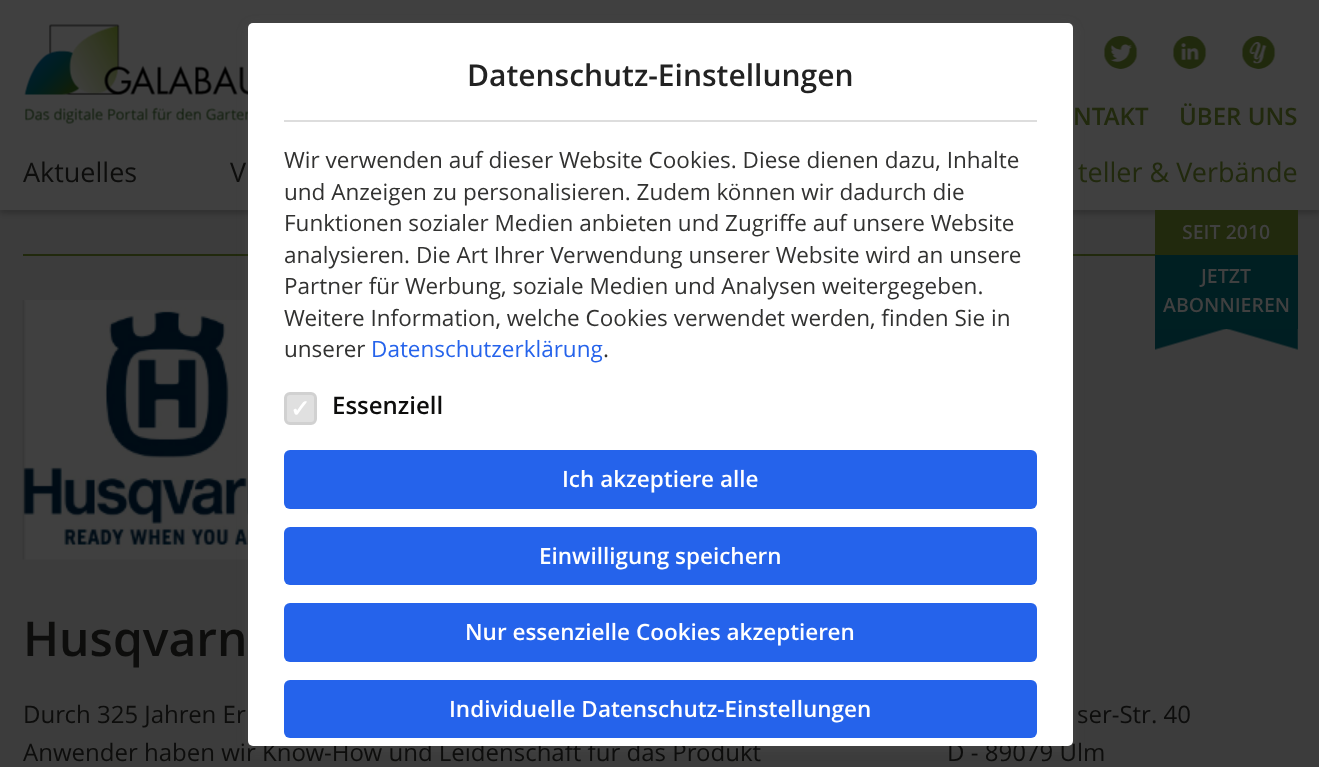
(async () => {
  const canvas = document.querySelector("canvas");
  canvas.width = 1319;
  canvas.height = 767;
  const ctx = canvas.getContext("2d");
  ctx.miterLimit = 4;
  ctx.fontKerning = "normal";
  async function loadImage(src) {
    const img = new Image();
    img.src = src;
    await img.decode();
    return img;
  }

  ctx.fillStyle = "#3c3c3c";
  ctx.fillRect(0, 0, 1319, 767);
  ctx.fillStyle = "rgba(0, 0, 0, 0.7)";
  ctx.filter = "blur(3px)";
  ctx.beginPath();
  ctx.rect(0, 209, 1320, 2);
  ctx.fill();
  ctx.filter = "none";
  ctx.fillStyle = "#404040";
  ctx.fillRect(0, 0, 1319, 210);
  ctx.drawImage(await loadImage("img/1.png"), 24, 24, 224, 100);
  ctx.fillStyle = "#21290d";
  ctx.fillRect(23, 254, 1132, 2);
  ctx.drawImage(await loadImage("img/6.png"), 22, 300, 226, 260);
  ctx.fillStyle = "rgba(99, 99, 99, 0.2)";
  ctx.filter = "blur(6px)";
  ctx.beginPath();
  ctx.roundRect(248, 26, 825, 723, 5);
  ctx.fill();
  ctx.filter = "none";
  ctx.drawImage(await loadImage("img/2.png"), 1104, 36, 34, 33);
  ctx.drawImage(await loadImage("img/3.png"), 1173, 36, 34, 33);
  ctx.drawImage(await loadImage("img/4.png"), 1242, 36, 34, 33);
  ctx.fillStyle = "#001f22";
  ctx.fillRect(1155, 255, 143, 74);
  ctx.fillStyle = "#21290d";
  ctx.fillRect(1155, 210, 143, 45);
  ctx.drawImage(await loadImage("img/5.png"), 1155, 329, 143, 21);
  ctx.font = "600 24px Open Sans";
  ctx.fillText("NTAKT", 1073, 125);
  ctx.fillText("ÜBER UNS", 1179, 125);
  ctx.font = "27px Open Sans";
  ctx.fillStyle = "#0d0d0c";
  ctx.fillText("Aktuelles", 23, 182);
  ctx.fillText("V", 230, 182);
  ctx.fillStyle = "#21290d";
  ctx.fillText("teller & Verbände", 1078, 182);
  ctx.font = "600 19.5px Open Sans";
  ctx.fillStyle = "#404040";
  for (const [text, x, y] of [
    ["SEIT 2010", 1182, 239],
    ["JETZT", 1201, 283],
    ["ABONNIEREN", 1163, 312],
  ]) {
    ctx.fillText(text, x, y);
  }
  ctx.font = "600 48px Open Sans";
  ctx.fillStyle = "#0d0d0c";
  ctx.fillText("Husqvarn", 23, 656);
  ctx.font = "24px Open Sans";
  for (const [text, x, y] of [
    ["Durch 325 Jahren Er", 23, 723],
    ["Anwender haben wir Know-How und Leidenschaft für das Produkt", 23, 761],
    ["ser-Str. 40", 1077, 723],
    ["D - 89079 Ulm", 947, 761],
  ]) {
    ctx.fillText(text, x, y);
  }
  ctx.fillStyle = "#ffffff";
  ctx.beginPath();
  ctx.roundRect(248, 23, 825, 723, 5);
  ctx.fill();
  ctx.fillStyle = "#2563eb";
  ctx.beginPath();
  ctx.roundRect(284, 680, 753, 58, 6);
  ctx.fill();
  ctx.font = "600 22.5px Open Sans";
  ctx.fillStyle = "#ffffff";
  ctx.fillText("Individuelle Datenschutz-Einstellungen", 449, 717);
  ctx.fillStyle = "#2563eb";
  ctx.beginPath();
  ctx.roundRect(284, 603, 753, 59, 6);
  ctx.fill();
  ctx.fillStyle = "#ffffff";
  ctx.fillText("Nur essenzielle Cookies akzeptieren", 465, 640);
  ctx.fillStyle = "#2563eb";
  ctx.beginPath();
  ctx.roundRect(284, 527, 753, 58, 6);
  ctx.fill();
  ctx.fillStyle = "#ffffff";
  ctx.fillText("Einwilligung speichern", 539, 564);
  ctx.fillStyle = "#2563eb";
  ctx.beginPath();
  ctx.roundRect(284, 450, 753, 59, 6);
  ctx.fill();
  ctx.fillStyle = "#ffffff";
  ctx.fillText("Ich akzeptiere alle", 562, 487);
  ctx.font = "600 24px Open Sans";
  ctx.fillStyle = "#0d0d0c";
  ctx.fillText("Essenziell", 332, 414);
  ctx.fillStyle = "#e0e0e0";
  ctx.beginPath();
  ctx.roundRect(285.5, 393.5, 30, 30, 4.5);
  ctx.fill();
  ctx.strokeStyle = "#d1d1d1";
  ctx.lineWidth = 3;
  ctx.stroke();
  ctx.font = "bold 24px DejaVu Sans";
  ctx.fillStyle = "#ffffff";
  ctx.fillText("✓", 290, 417);
  ctx.font = "22.5px Open Sans";
  ctx.fillStyle = "#323231";
  ctx.fillText(".", 603, 357);
  ctx.fillStyle = "#2563eb";
  ctx.fillText("Datenschutzerklärung", 371, 357);
  ctx.fillStyle = "#323231";
  for (const [text, x, y] of [
    ["unserer", 284, 357],
    ["Weitere Information, welche Cookies verwendet werden, finden Sie in", 284, 326],
    ["Partner für Werbung, soziale Medien und Analysen weitergegeben.", 284, 294],
    ["analysieren. Die Art Ihrer Verwendung unserer Website wird an unsere", 284, 263],
    ["Funktionen sozialer Medien anbieten und Zugriffe auf unsere Website", 284, 231],
    ["und Anzeigen zu personalisieren. Zudem können wir dadurch die", 284, 200],
    ["Wir verwenden auf dieser Website Cookies. Diese dienen dazu, Inhalte", 284, 168],
  ]) {
    ctx.fillText(text, x, y);
  }
  ctx.fillStyle = "#dddddd";
  ctx.fillRect(284, 120, 753, 2);
  ctx.font = "600 30px Open Sans";
  ctx.fillStyle = "#222222";
  ctx.fillText("Datenschutz-Einstellungen", 467, 86);
})();
